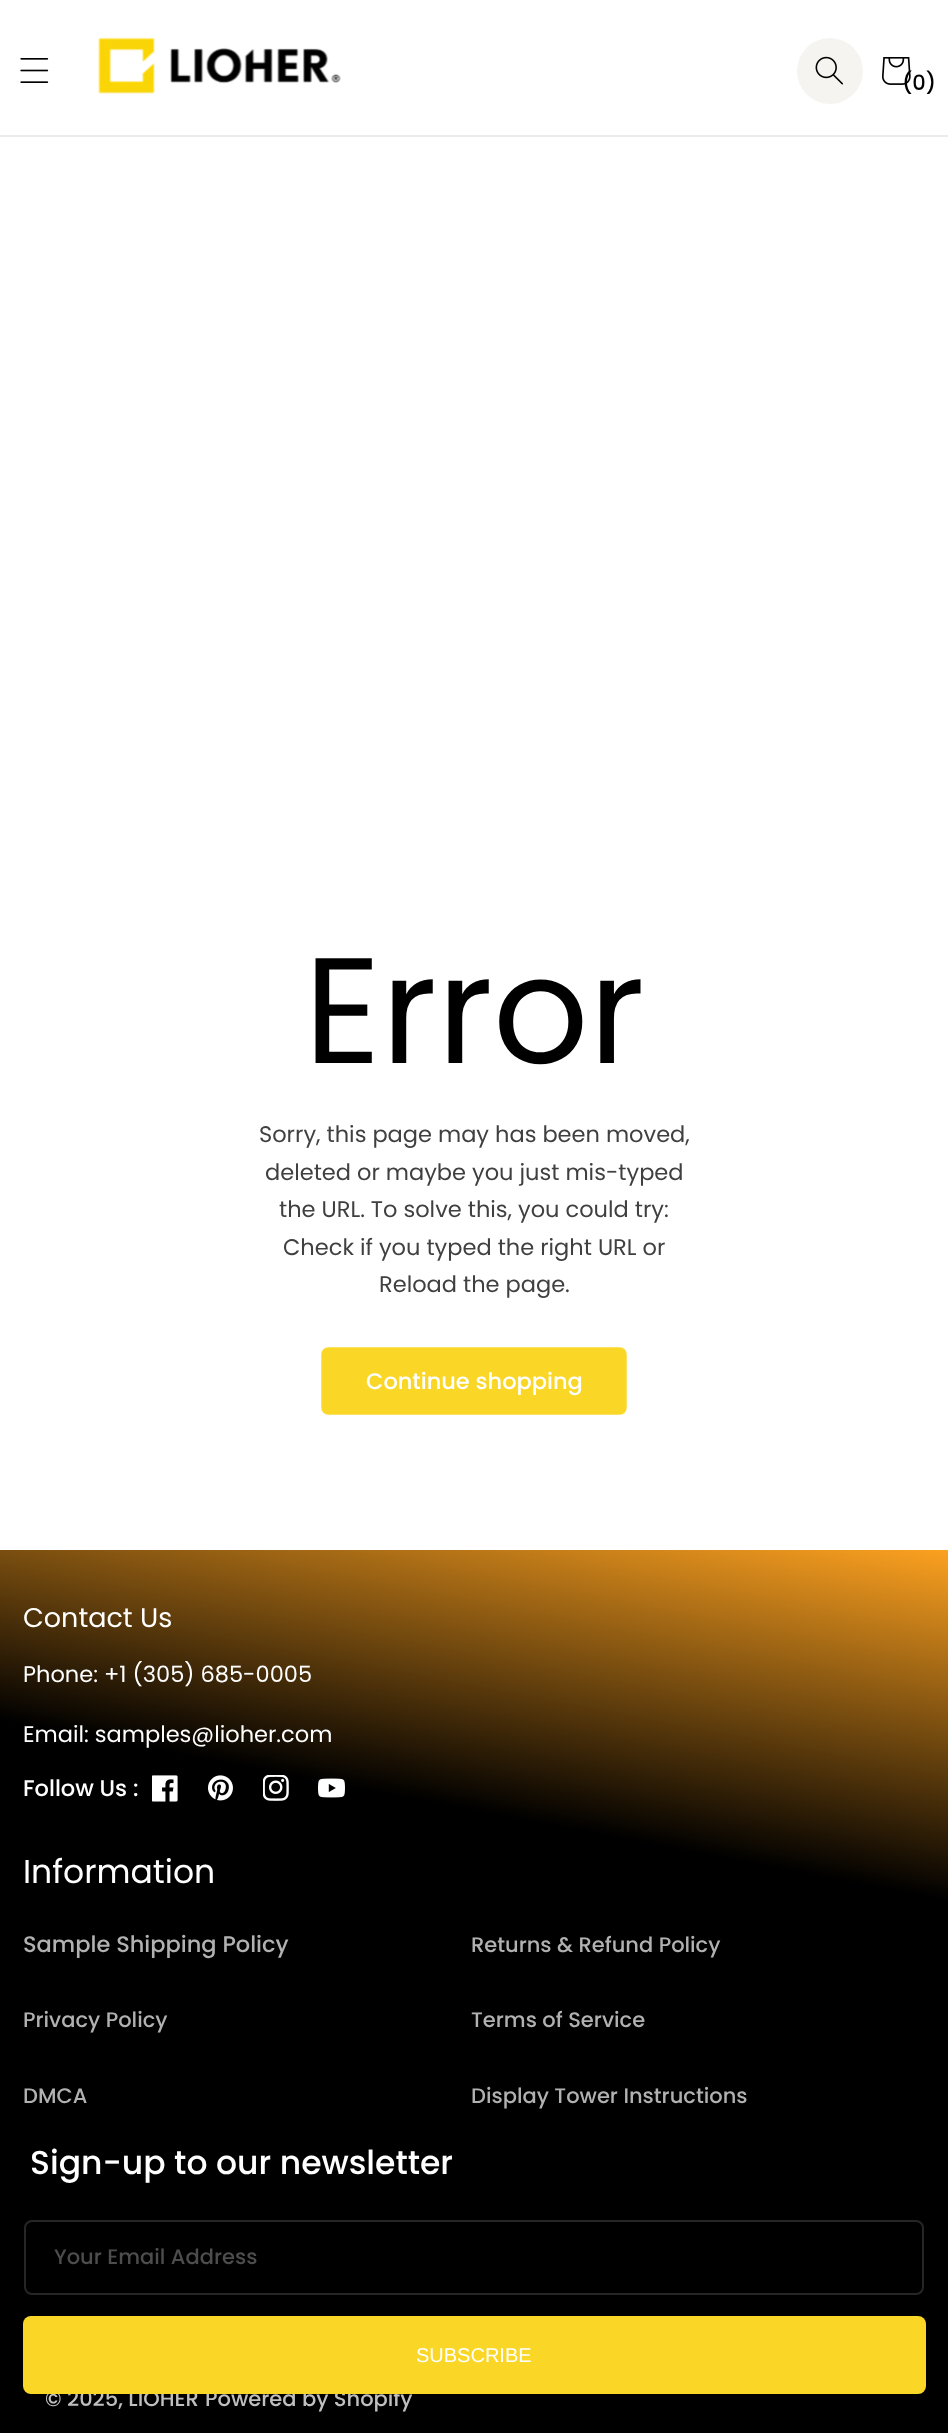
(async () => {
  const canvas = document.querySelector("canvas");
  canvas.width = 948;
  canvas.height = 2433;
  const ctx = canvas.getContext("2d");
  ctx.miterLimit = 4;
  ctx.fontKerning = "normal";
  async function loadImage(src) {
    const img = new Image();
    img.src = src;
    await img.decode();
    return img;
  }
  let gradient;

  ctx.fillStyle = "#ffffff";
  ctx.fillRect(0, 0, 948, 2433);
  ctx.fillStyle = "#ebebeb";
  ctx.fillRect(0, 135, 948, 2);
  ctx.drawImage(await loadImage("img/1.png"), 20, 58, 29, 25);
  ctx.drawImage(await loadImage("img/2.png"), 98, 37, 243, 57);
  ctx.fillStyle = "#f6f4f0";
  ctx.beginPath();
  ctx.arc(830, 71, 33, 0, Math.PI * 2);
  ctx.fill();
  ctx.drawImage(await loadImage("img/3.png"), 815, 56, 28, 29);
  ctx.drawImage(await loadImage("img/4.png"), 882, 57, 29, 28);
  ctx.fillStyle = "#fad726";
  ctx.beginPath();
  ctx.roundRect(321, 1347, 306, 68, 8);
  ctx.fill();
  ctx.beginPath();
  ctx.roundRect(321.2, 1347.2, 305.6, 67.6, 5.8);
  ctx.strokeStyle = "#ffffff";
  ctx.lineWidth = 0.4;
  ctx.stroke();
  gradient = ctx.createLinearGradient(376, 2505, 572, 1478);
  gradient.addColorStop(0, "#000000");
  gradient.addColorStop(0.67, "#000000");
  gradient.addColorStop(1, "#fca120");
  ctx.fillStyle = gradient;
  ctx.fillRect(0, 1550, 948, 883);
  ctx.drawImage(await loadImage("img/5.png"), 152, 1775, 26, 27);
  ctx.drawImage(await loadImage("img/6.png"), 208, 1775, 25, 26);
  ctx.drawImage(await loadImage("img/7.png"), 263, 1775, 26, 26);
  ctx.drawImage(await loadImage("img/8.png"), 318, 1778, 27, 20);
  ctx.beginPath();
  ctx.roundRect(25, 2221, 898, 73, 7);
  ctx.strokeStyle = "#262626";
  ctx.lineWidth = 2;
  ctx.stroke();
  ctx.font = "500 21px Poppins";
  ctx.fillStyle = "#000000";
  ctx.fillText("(0)", 902, 90);
  ctx.font = "150px Poppins";
  ctx.fillText("Error", 304, 1063);
  ctx.font = "22.5px Poppins";
  ctx.fillStyle = "#404040";
  for (const [text, x, y] of [
    ["Sorry, this page may has been moved,", 259, 1142],
    ["deleted or maybe you just mis-typed", 265, 1180],
    ["the URL. To solve this, you could try:", 279, 1217],
    ["Check if you typed the right URL or", 283, 1255],
    ["Reload the page.", 379, 1292],
  ]) {
    ctx.fillText(text, x, y);
  }
  ctx.font = "500 22.5px Poppins";
  ctx.fillStyle = "#ffffff";
  ctx.fillText("Continue shopping", 366, 1389);
  ctx.font = "27px Poppins";
  ctx.fillText("Contact Us", 23, 1627);
  ctx.font = "22.5px Poppins";
  ctx.fillText("Phone: +1 (305) 685-0005", 23, 1682);
  ctx.fillText("Email: samples@lioher.com", 23, 1742);
  ctx.font = "500 22.5px Poppins";
  ctx.fillText("Follow Us :", 23, 1796);
  ctx.font = "33px Poppins";
  ctx.fillText("Information", 23, 1883);
  ctx.font = "500 22.5px Poppins";
  ctx.fillStyle = "#b1b1b1";
  ctx.fillText("Sample Shipping Policy", 23, 1952);
  ctx.font = "500 21px Poppins";
  for (const [text, x, y] of [
    ["Returns & Refund Policy", 471, 1952],
    ["Privacy Policy", 23, 2027],
    ["Terms of Service", 471, 2027],
    ["DMCA", 23, 2103],
    ["Display Tower Instructions", 471, 2103],
  ]) {
    ctx.fillText(text, x, y);
  }
  ctx.font = "500 33px Poppins";
  ctx.fillStyle = "#ffffff";
  ctx.fillText("Sign-up to our newsletter", 30, 2174);
  ctx.font = "500 21px Poppins";
  ctx.fillStyle = "#4d4d4d";
  ctx.fillText("Your Email Address", 54, 2264);
  ctx.fillStyle = "#bfbfbf";
  ctx.fillText("© 2025, LIOHER", 45, 2406);
  ctx.fillText("Powered by Shopify", 205, 2406);
  ctx.fillStyle = "#fad726";
  ctx.beginPath();
  ctx.roundRect(23, 2316, 903, 78, 8);
  ctx.fill();
  ctx.font = "20px Liberation Sans";
  ctx.fillStyle = "#ffffff";
  ctx.fillText("SUBSCRIBE", 416, 2362);
})();
